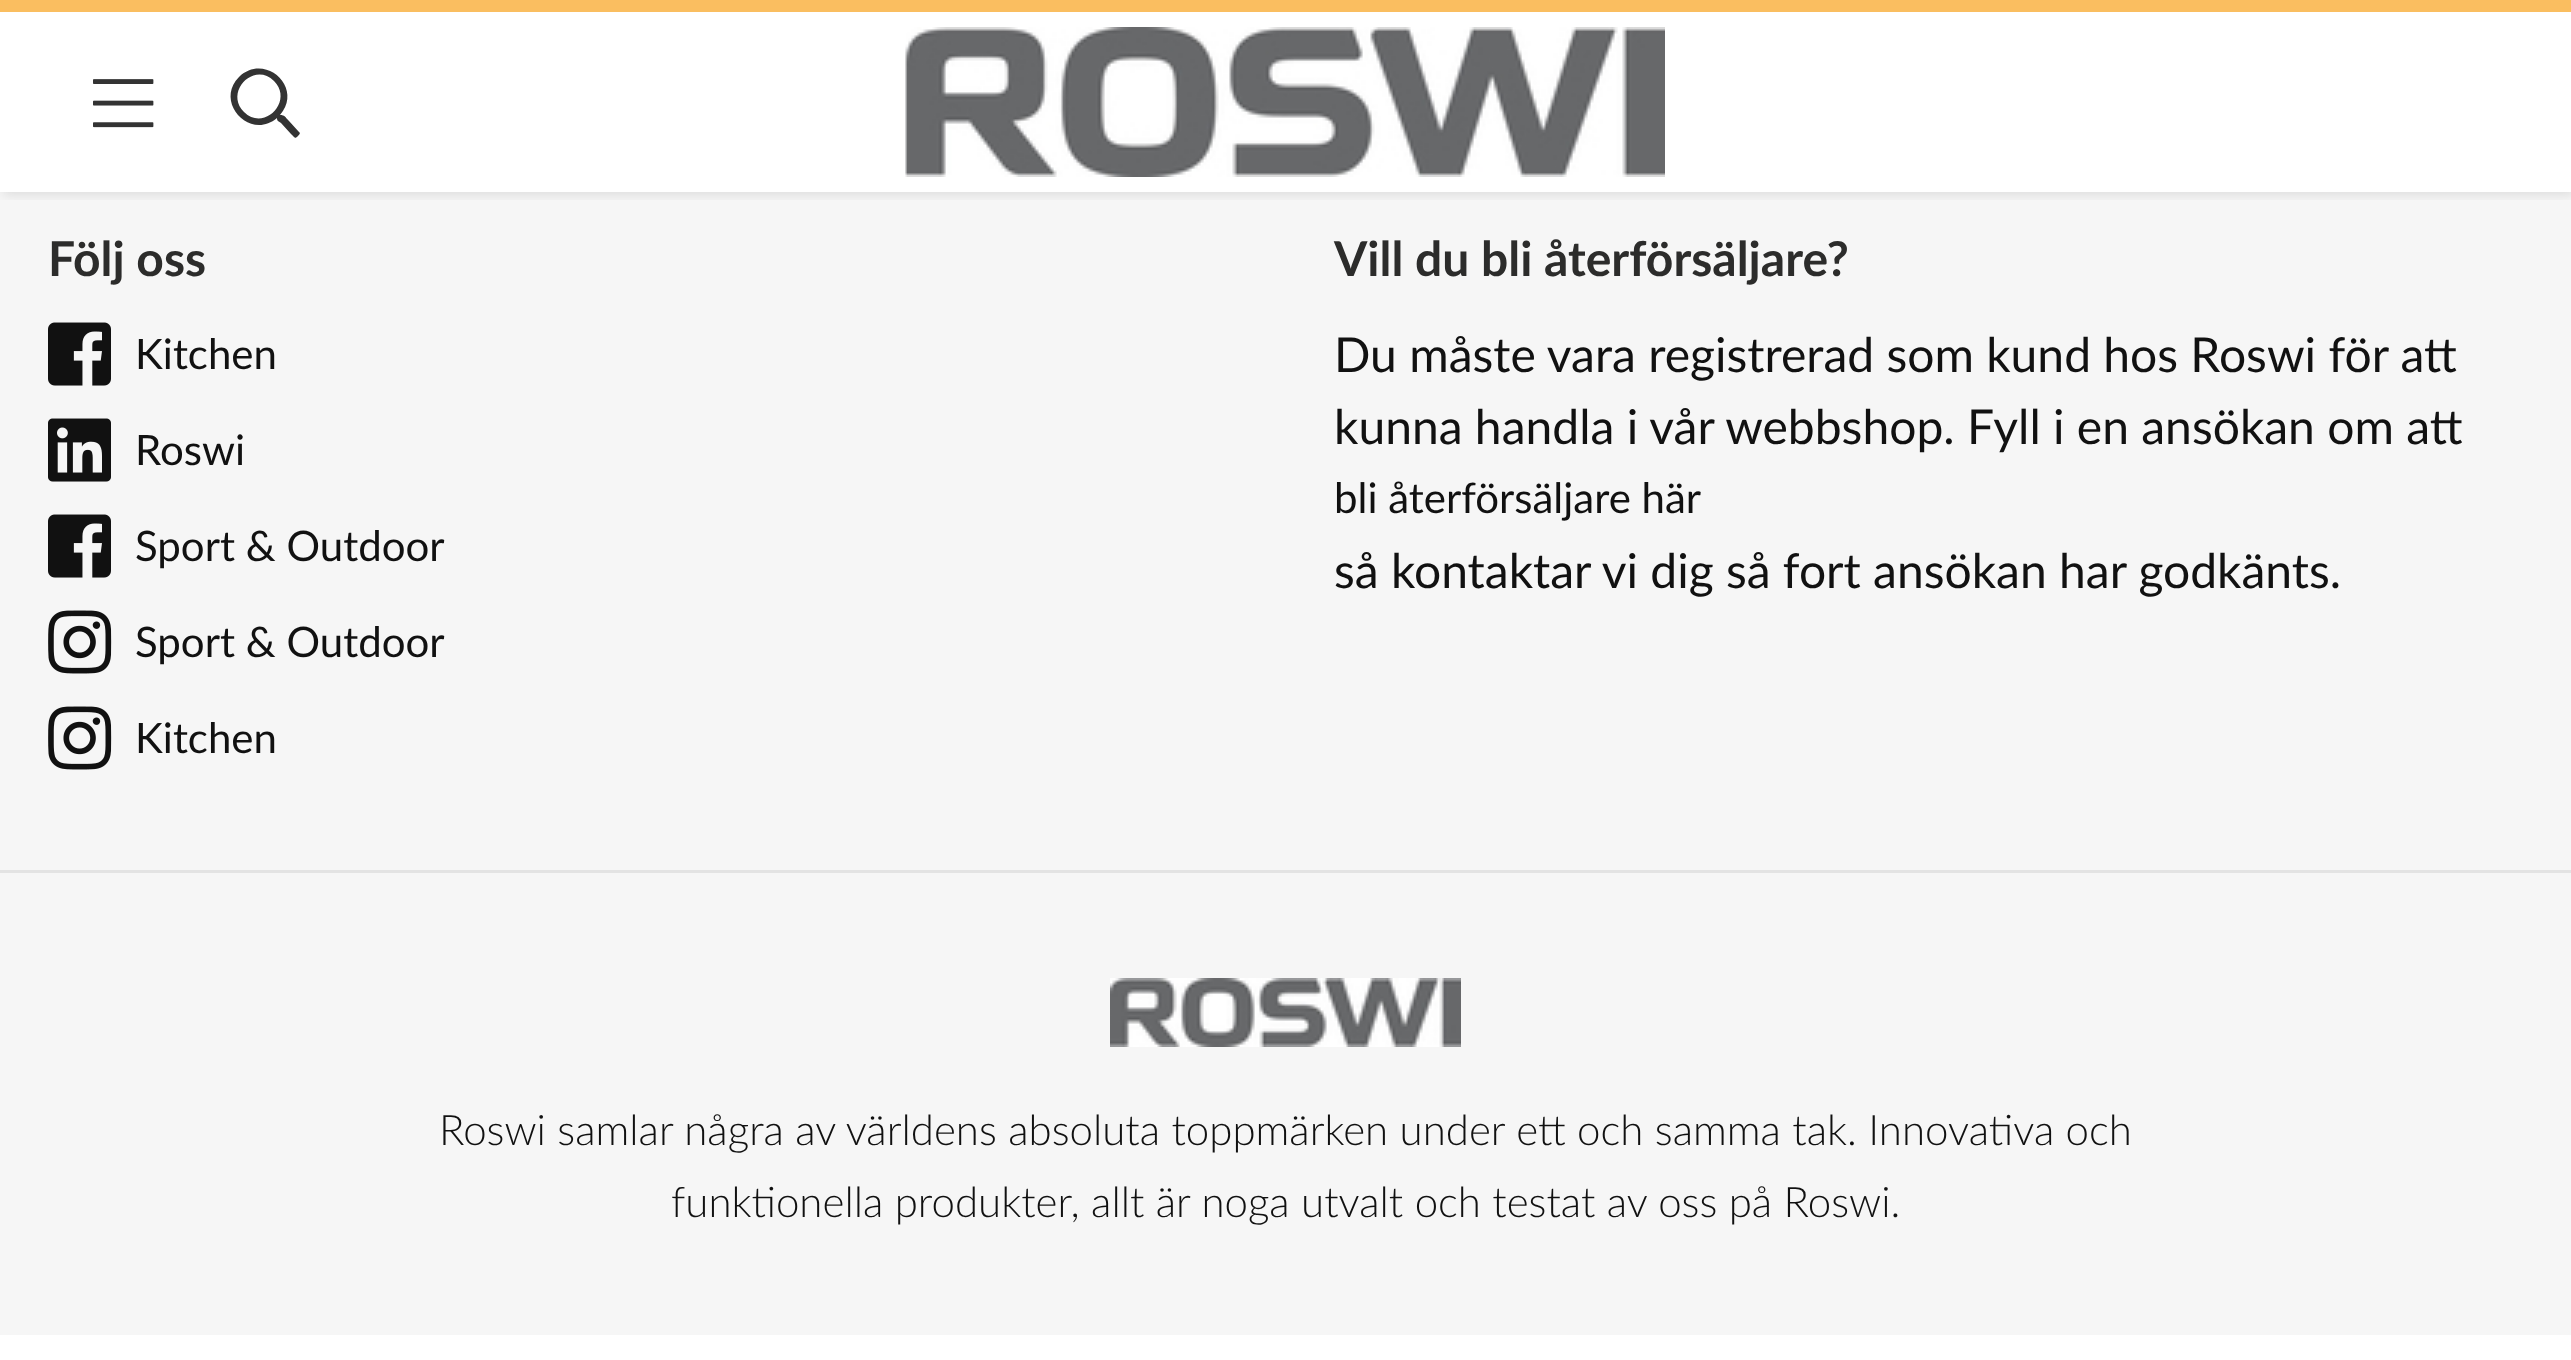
(async () => {
  const canvas = document.querySelector("canvas");
  canvas.width = 2571;
  canvas.height = 1360;
  const ctx = canvas.getContext("2d");
  ctx.miterLimit = 4;
  ctx.fontKerning = "normal";
  async function loadImage(src) {
    const img = new Image();
    img.src = src;
    await img.decode();
    return img;
  }
  let path;

  ctx.fillStyle = "#ffffff";
  ctx.fillRect(0, 0, 2571, 1360);
  ctx.fillStyle = "#f6f6f6";
  ctx.fillRect(0, 192, 2571, 1143);
  ctx.save();
  ctx.beginPath();
  ctx.rect(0, 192, 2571, 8);
  ctx.clip();
  ctx.fillStyle = "rgba(0, 0, 0, 0.1)";
  ctx.filter = "blur(6px)";
  ctx.beginPath();
  ctx.rect(3, 3, 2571, 192);
  ctx.fill();
  ctx.filter = "none";
  ctx.restore();
  ctx.fillStyle = "#fabe60";
  ctx.fillRect(0, 0, 2571, 12);
  ctx.drawImage(await loadImage("img/1.png"), 93, 79, 61, 49);
  ctx.fillStyle = "#333333";
  path = new Path2D("M299 132C301 133 299 135 298 136C295 139 295 138 291 134L281 123C278 121 277 121 277 118C250 141 214 102 239 77C265 52 304 88 280 115C285 115 285 117 289 121ZM244 112C264 132 294 101 274 81C254 61 224 92 244 112Z");
  ctx.fill(path);
  ctx.drawImage(await loadImage("img/2.png"), 905, 27, 760, 150);
  ctx.fillStyle = "#e3e3e3";
  ctx.fillRect(0, 870, 2571, 3);
  ctx.drawImage(await loadImage("img/3.png"), 48, 322, 63, 64);
  ctx.drawImage(await loadImage("img/4.png"), 48, 418, 63, 64);
  ctx.drawImage(await loadImage("img/3.png"), 48, 514, 63, 64);
  ctx.drawImage(await loadImage("img/5.png"), 48, 610, 64, 64);
  ctx.drawImage(await loadImage("img/5.png"), 48, 706, 64, 64);
  ctx.drawImage(await loadImage("img/6.png"), 1110, 978, 351, 69);
  ctx.font = "bold 48px Lato";
  ctx.fillStyle = "#2c2c2b";
  ctx.fillText("Följ oss", 48, 276);
  ctx.font = "42px Lato";
  ctx.fillStyle = "#111111";
  for (const [text, x, y] of [
    ["Kitchen", 135, 369],
    ["Roswi", 135, 465],
    ["Sport & Outdoor", 135, 561],
    ["Sport & Outdoor", 135, 657],
    ["Kitchen", 135, 753],
  ]) {
    ctx.fillText(text, x, y);
  }
  ctx.font = "bold 48px Lato";
  ctx.fillStyle = "#2c2c2b";
  ctx.fillText("Vill du bli återförsäljare?", 1334, 276);
  ctx.font = "48px Lato";
  ctx.fillStyle = "#111111";
  ctx.fillText("Du måste vara registrerad som kund hos Roswi för att", 1334, 372);
  ctx.fillText("kunna handla i vår webbshop. Fyll i en ansökan om att", 1334, 444);
  ctx.font = "42px Lato";
  ctx.fillText("bli återförsäljare här", 1334, 513);
  ctx.font = "48px Lato";
  ctx.fillText("så kontaktar vi dig så fort ansökan har godkänts.", 1334, 588);
  ctx.font = "300 42px Lato";
  ctx.fillText("Roswi samlar några av världens absoluta toppmärken under ett och samma tak. Innovativa och", 439, 1145);
  ctx.fillText("funktionella produkter, allt är noga utvalt och testat av oss på Roswi.", 671, 1217);
})();
